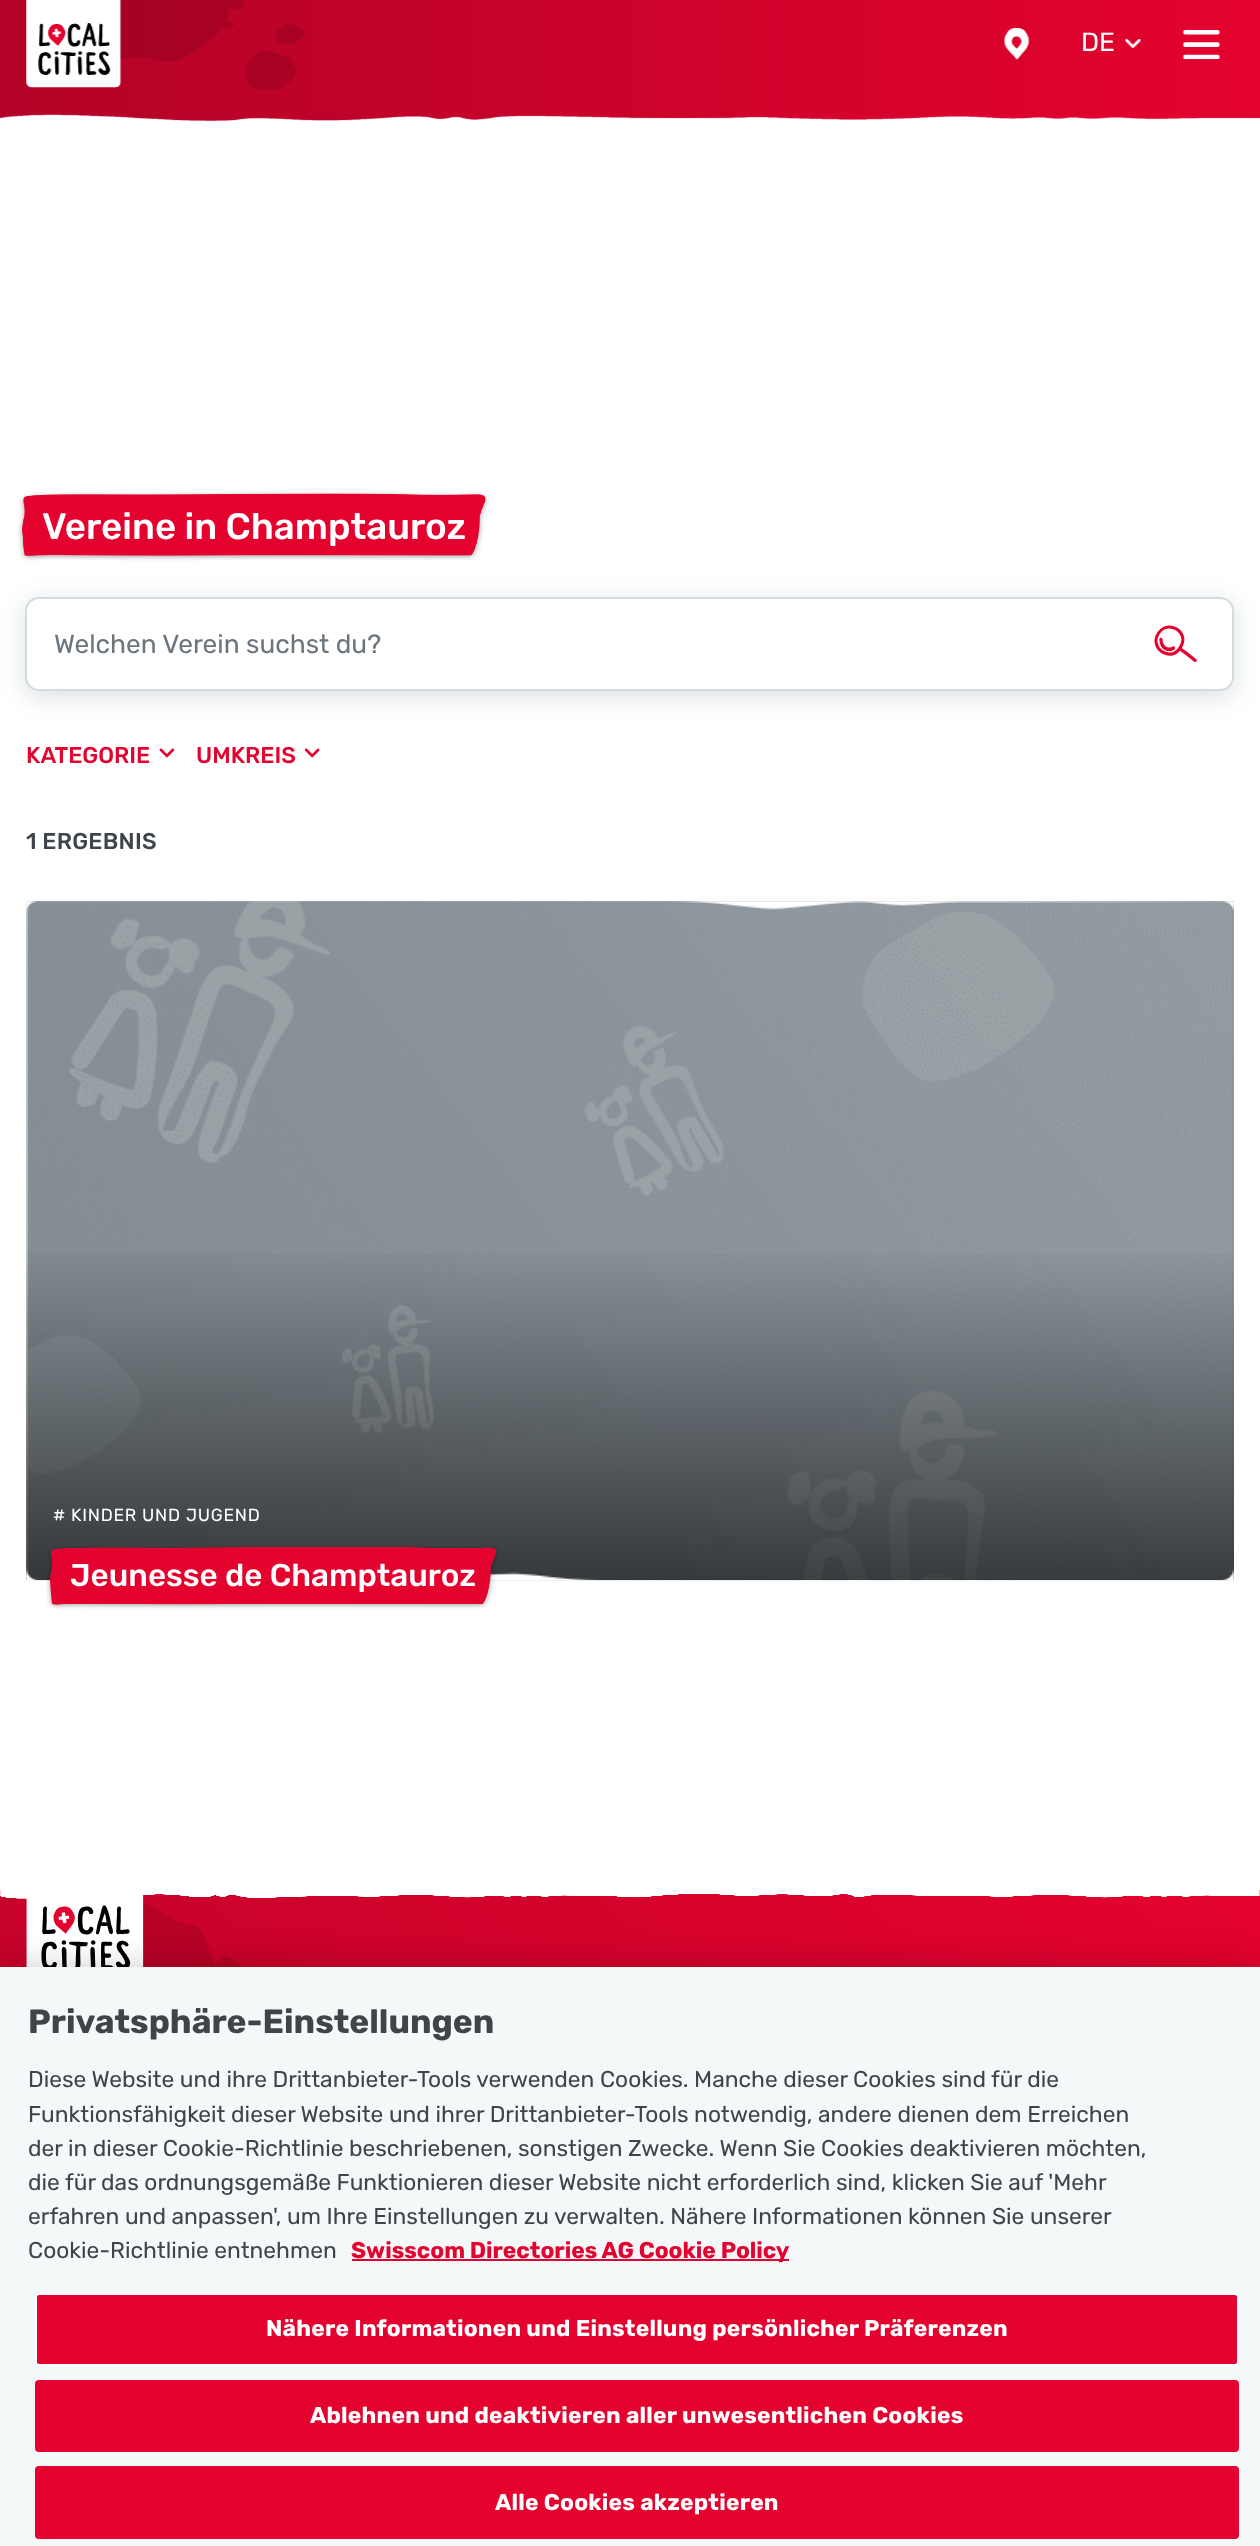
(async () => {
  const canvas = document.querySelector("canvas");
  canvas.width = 1260;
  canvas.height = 2546;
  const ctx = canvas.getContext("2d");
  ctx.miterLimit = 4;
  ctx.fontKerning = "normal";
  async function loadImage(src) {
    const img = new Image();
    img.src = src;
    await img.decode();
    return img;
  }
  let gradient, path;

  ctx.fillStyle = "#ffffff";
  ctx.fillRect(0, 0, 1260, 2546);
  ctx.fillStyle = "#cccccc";
  ctx.fillRect(26, 901, 1208, 679);
  gradient = ctx.createLinearGradient(0, 57, 1260, 57);
  gradient.addColorStop(0, "#b30326");
  gradient.addColorStop(1, "#e4022e");
  ctx.fillStyle = gradient;
  ctx.fillRect(0, 0, 1260, 114);
  ctx.drawImage(await loadImage("img/1.png"), 120, 0, 185, 91);
  ctx.drawImage(await loadImage("img/2.png"), 26, 0, 96, 88);
  ctx.drawImage(await loadImage("img/3.png"), 1004, 28, 26, 32);
  ctx.drawImage(await loadImage("img/4.png"), 1125, 39, 16, 9);
  ctx.drawImage(await loadImage("img/5.png"), 1182, 30, 38, 30);
  ctx.drawImage(await loadImage("img/6.png"), 0, 114, 1260, 8);
  ctx.drawImage(await loadImage("img/7.png"), 18, 492, 472, 69);
  ctx.save();
  path = new Path2D("M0 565H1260V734H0ZM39 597H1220C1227.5 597 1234 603.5 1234 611V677C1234 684.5 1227.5 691 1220 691H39C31.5 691 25 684.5 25 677V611C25 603.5 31.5 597 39 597Z");
  ctx.clip(path, "evenodd");
  ctx.fillStyle = "rgba(31, 53, 67, 0.16)";
  ctx.filter = "blur(12px)";
  ctx.beginPath();
  ctx.roundRect(25, 602, 1209, 95, 14);
  ctx.fill();
  ctx.filter = "none";
  ctx.restore();
  ctx.beginPath();
  ctx.roundRect(26, 598, 1207, 92, 13);
  ctx.strokeStyle = "#d2dbe0";
  ctx.lineWidth = 2;
  ctx.stroke();
  ctx.drawImage(await loadImage("img/8.png"), 1154, 625, 43, 37);
  ctx.drawImage(await loadImage("img/9.png"), 159, 748, 16, 10);
  ctx.drawImage(await loadImage("img/10.png"), 304, 748, 16, 10);
  ctx.drawImage(await loadImage("img/11.png"), 26, 901, 1208, 680);
  gradient = ctx.createLinearGradient(630, 901, 630, 1580);
  gradient.addColorStop(0.5, "rgba(0, 0, 0, 0)");
  gradient.addColorStop(1, "rgba(0, 0, 0, 0.6)");
  ctx.fillStyle = gradient;
  ctx.fillRect(26, 1253, 1208, 327);
  ctx.drawImage(await loadImage("img/12.png"), 26, 901, 1208, 10);
  ctx.drawImage(await loadImage("img/13.png"), 26, 1568, 1208, 13);
  ctx.drawImage(await loadImage("img/14.png"), 46, 1546, 452, 63);
  gradient = ctx.createLinearGradient(99, 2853, 1161, 1791);
  gradient.addColorStop(0, "#b30326");
  gradient.addColorStop(1, "#e4022e");
  ctx.fillStyle = gradient;
  ctx.fillRect(0, 1890, 1260, 77);
  ctx.drawImage(await loadImage("img/15.png"), 0, 1890, 1260, 9);
  ctx.drawImage(await loadImage("img/17.png"), 143, 1902, 97, 65);
  ctx.drawImage(await loadImage("img/16.png"), 26, 1890, 118, 77);
  ctx.fillStyle = "rgba(0, 0, 0, 0.2)";
  ctx.filter = "blur(16px)";
  ctx.beginPath();
  ctx.rect(0, 1967, 1260, 579);
  ctx.fill();
  ctx.filter = "none";
  ctx.fillStyle = "#f5f8f9";
  ctx.fillRect(0, 1967, 1260, 579);
  ctx.fillStyle = "#e4022e";
  ctx.fillRect(352, 2259, 437, 2);
  ctx.beginPath();
  ctx.roundRect(36, 2294, 1202, 71, 3);
  ctx.fill();
  ctx.strokeStyle = "#ffffff";
  ctx.stroke();
  ctx.beginPath();
  ctx.roundRect(36, 2381, 1202, 70, 3);
  ctx.fill();
  ctx.strokeStyle = "#e4022e";
  ctx.stroke();
  ctx.beginPath();
  ctx.roundRect(36, 2467, 1202, 71, 3);
  ctx.fill();
  ctx.stroke();
  ctx.font = "26.25px Rubik";
  ctx.fillStyle = "#ffffff";
  ctx.fillText("DE", 1081, 51);
  ctx.font = "500 36.75px Rubik";
  ctx.fillText("Vereine in Champtauroz", 42, 539);
  ctx.font = "26.25px Rubik";
  ctx.fillStyle = "#6c757d";
  ctx.fillText("Welchen Verein suchst du?", 54, 653);
  ctx.font = "500 22.75px Rubik";
  ctx.fillStyle = "#e4022e";
  ctx.fillText("KATEGORIE", 26, 763);
  ctx.fillText("UMKREIS", 196, 763);
  ctx.letterSpacing = "0.25px";
  ctx.fillStyle = "#3e4449";
  ctx.fillText("1 ERGEBNIS", 26, 849);
  ctx.letterSpacing = "0.75px";
  ctx.font = "17.5px Rubik";
  ctx.fillStyle = "#ffffff";
  ctx.fillText("# KINDER UND JUGEND", 53, 1521);
  ctx.letterSpacing = "0px";
  ctx.font = "500 31.5px Rubik";
  ctx.fillText("Jeunesse de Champtauroz", 70, 1586);
  ctx.font = "bold 33.6px Rubik";
  ctx.fillStyle = "#3e4449";
  ctx.fillText("Privatsphäre-Einstellungen", 28, 2033);
  ctx.font = "22.75px Rubik";
  for (const [text, x, y] of [
    ["Diese Website und ihre Drittanbieter-Tools verwenden Cookies. Manche dieser Cookies sind für die", 28, 2087],
    ["Funktionsfähigkeit dieser Website und ihrer Drittanbieter-Tools notwendig, andere dienen dem Erreichen", 28, 2122],
    ["der in dieser Cookie-Richtlinie beschriebenen, sonstigen Zwecke. Wenn Sie Cookies deaktivieren möchten,", 28, 2156],
    ["die für das ordnungsgemäße Funktionieren dieser Website nicht erforderlich sind, klicken Sie auf 'Mehr", 28, 2190],
    ["erfahren und anpassen', um Ihre Einstellungen zu verwalten. Nähere Informationen können Sie unserer", 28, 2224],
    ["Cookie-Richtlinie entnehmen", 28, 2258],
  ]) {
    ctx.fillText(text, x, y);
  }
  ctx.font = "bold 22.75px Rubik";
  ctx.fillStyle = "#e4022e";
  ctx.fillText("Swisscom Directories AG Cookie Policy", 351, 2258);
  ctx.letterSpacing = "0.23px";
  ctx.fillStyle = "#ffffff";
  for (const [text, x, y] of [
    ["Nähere Informationen und Einstellung persönlicher Präferenzen", 266, 2336],
    ["Ablehnen und deaktivieren aller unwesentlichen Cookies", 310, 2423],
    ["Alle Cookies akzeptieren", 495, 2510],
  ]) {
    ctx.fillText(text, x, y);
  }
})();
